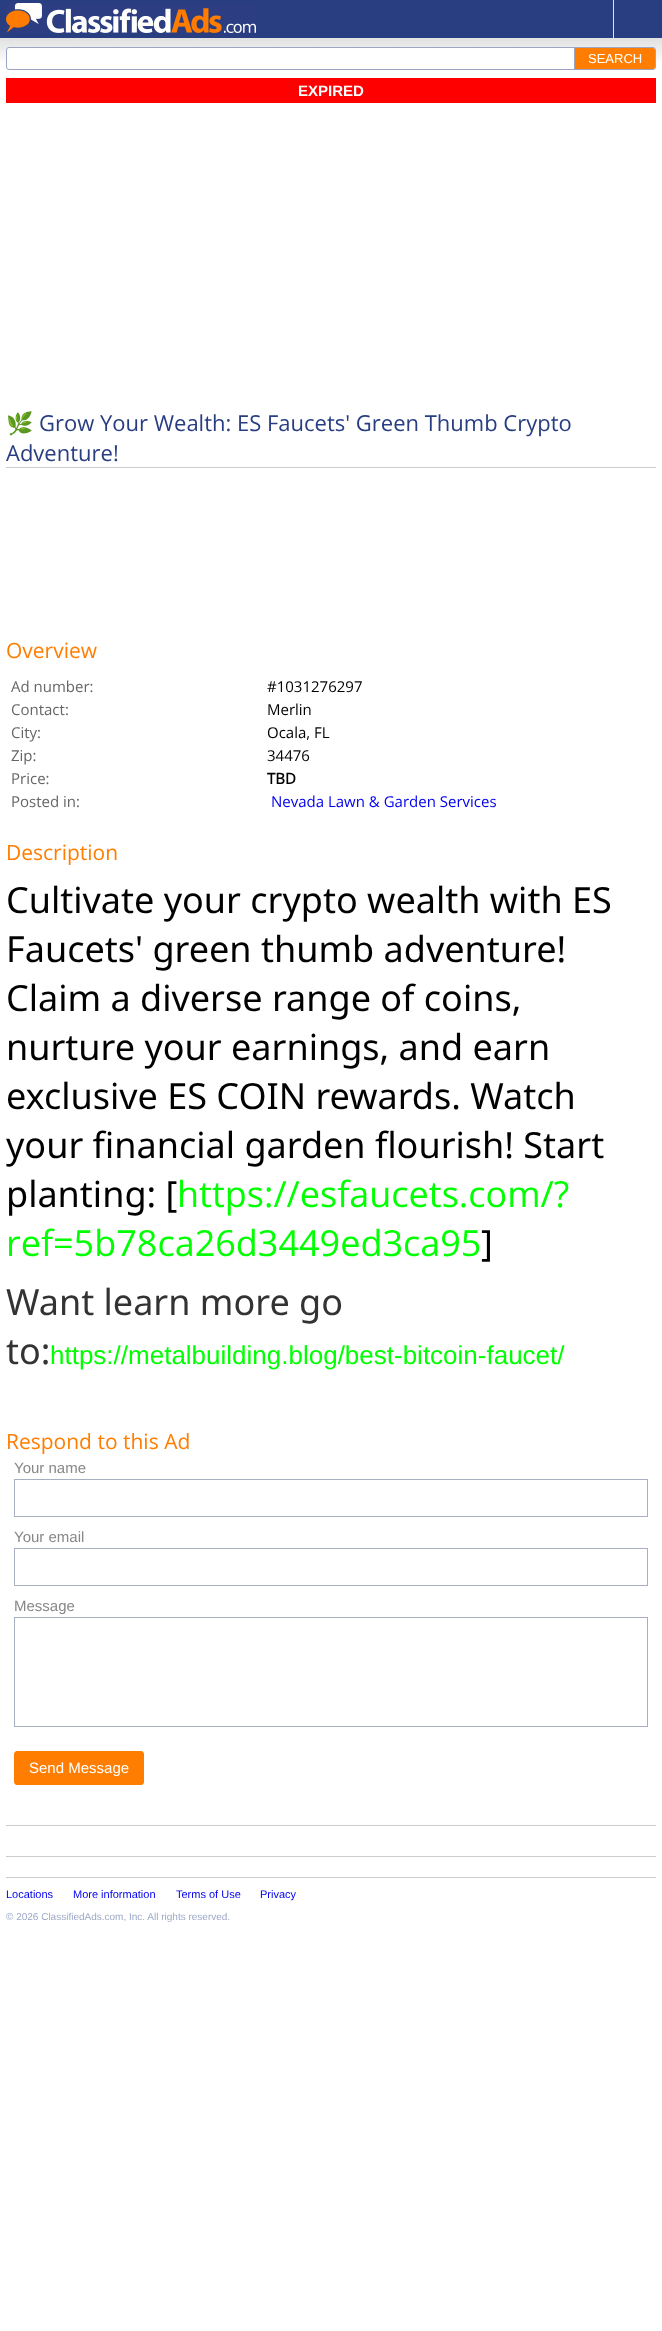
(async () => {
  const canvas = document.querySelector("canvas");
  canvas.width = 662;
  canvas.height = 2331;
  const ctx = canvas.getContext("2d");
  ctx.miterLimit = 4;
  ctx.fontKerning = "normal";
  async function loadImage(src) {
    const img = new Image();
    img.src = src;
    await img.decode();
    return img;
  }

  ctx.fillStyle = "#ffffff";
  ctx.fillRect(0, 0, 662, 2331);
  ctx.fillStyle = "#293e80";
  ctx.fillRect(0, 0, 662, 38);
  ctx.drawImage(await loadImage("img/1.png"), 6, 3, 250, 30);
  ctx.fillStyle = "#e2e2e2";
  ctx.fillRect(613, 0, 1, 38);
  ctx.drawImage(await loadImage("img/2.png"), 0, 38, 662, 23);
  ctx.fillStyle = "#ffffff";
  ctx.beginPath();
  ctx.roundRect(6.5, 47.5, 649, 22, 2.5);
  ctx.fill();
  ctx.strokeStyle = "#9ba5c3";
  ctx.stroke();
  ctx.fillStyle = "#ff7e02";
  ctx.beginPath();
  ctx.roundRect(574, 48, 81, 21, [0, 2, 2, 0]);
  ctx.fill();
  for (const [x, y, w, h, color] of [
    [574, 48, 1, 21, "#9ba5c3"],
    [6, 78, 650, 25, "#ff0000"],
    [6, 467, 650, 1, "#cccccc"],
  ]) {
    ctx.fillStyle = color;
    ctx.fillRect(x, y, w, h);
  }
  ctx.strokeStyle = "#a7b0c1";
  ctx.strokeRect(14.5, 1479.5, 633, 37);
  ctx.strokeRect(14.5, 1548.5, 633, 37);
  ctx.strokeRect(14.5, 1617.5, 633, 109);
  ctx.fillStyle = "#ff7e02";
  ctx.beginPath();
  ctx.roundRect(14.5, 1751.5, 129, 33, 2.5);
  ctx.fill();
  ctx.strokeStyle = "#ff7e02";
  ctx.stroke();
  for (const [x, y, w, h, color] of [
    [6, 1825, 650, 1, "#cccccc"],
    [6, 1856, 650, 1, "#cccccc"],
    [6, 1877, 650, 1, "#cccccc"],
  ]) {
    ctx.fillStyle = color;
    ctx.fillRect(x, y, w, h);
  }
  ctx.font = "13px Liberation Sans";
  ctx.fillStyle = "#ffffff";
  ctx.fillText("SEARCH", 588, 63);
  ctx.font = "bold 15px Liberation Sans";
  ctx.fillText("EXPIRED", 298, 96);
  ctx.font = "22px Noto Color Emoji";
  ctx.fillStyle = "#293e80";
  ctx.fillText("🌿", 6, 431);
  ctx.font = "22px Open Sans";
  ctx.fillText("Grow Your Wealth: ES Faucets' Green Thumb Crypto", 39, 431);
  ctx.fillText("Adventure!", 6, 461);
  ctx.font = "21px Open Sans";
  ctx.fillStyle = "#ff7e02";
  ctx.fillText("Overview", 6, 658);
  ctx.font = "15px Open Sans";
  ctx.fillStyle = "#666666";
  ctx.fillText("Ad number:", 11, 692);
  ctx.fillStyle = "#000000";
  ctx.fillText("#1031276297", 267, 692);
  ctx.fillStyle = "#666666";
  ctx.fillText("Contact:", 11, 715);
  ctx.fillStyle = "#000000";
  ctx.fillText("Merlin", 267, 715);
  ctx.fillStyle = "#666666";
  ctx.fillText("City:", 11, 738);
  ctx.fillStyle = "#000000";
  ctx.fillText("Ocala, FL", 267, 738);
  ctx.fillStyle = "#666666";
  ctx.fillText("Zip:", 11, 761);
  ctx.fillStyle = "#000000";
  ctx.fillText("34476", 267, 761);
  ctx.fillStyle = "#666666";
  ctx.fillText("Price:", 11, 784);
  ctx.font = "bold 15px Open Sans";
  ctx.fillStyle = "#000000";
  ctx.fillText("TBD", 267, 784);
  ctx.font = "15px Open Sans";
  ctx.fillStyle = "#666666";
  ctx.fillText("Posted in:", 11, 807);
  ctx.fillStyle = "#0000ee";
  ctx.fillText("Nevada Lawn & Garden Services", 271, 807);
  ctx.font = "21px Open Sans";
  ctx.fillStyle = "#ff7e02";
  ctx.fillText("Description", 6, 860);
  ctx.font = "36px Noto Sans";
  ctx.fillStyle = "#000000";
  for (const [text, x, y] of [
    ["Cultivate your crypto wealth with ES", 6, 913],
    ["Faucets' green thumb adventure!", 6, 962],
    ["Claim a diverse range of coins,", 6, 1011],
    ["nurture your earnings, and earn", 6, 1060],
    ["exclusive ES COIN rewards. Watch", 6, 1109],
    ["your financial garden flourish! Start", 6, 1158],
    ["planting: [", 6, 1207],
  ]) {
    ctx.fillText(text, x, y);
  }
  ctx.font = "36px Open Sans";
  ctx.fillStyle = "#00ff00";
  ctx.fillText("https://esfaucets.com/?", 177, 1207);
  ctx.fillText("ref=5b78ca26d3449ed3ca95", 6, 1256);
  ctx.font = "36px Noto Sans";
  ctx.fillStyle = "#000000";
  ctx.fillText("]", 481, 1256);
  ctx.fillStyle = "#333333";
  ctx.fillText("Want learn more go", 6, 1315);
  ctx.fillText("to:", 6, 1364);
  ctx.font = "26px Liberation Sans";
  ctx.fillStyle = "#00ff00";
  ctx.fillText("https://metalbuilding.blog/best-bitcoin-faucet/", 50, 1364);
  ctx.font = "21px Open Sans";
  ctx.fillStyle = "#ff7e02";
  ctx.fillText("Respond to this Ad", 6, 1449);
  ctx.font = "15px Liberation Sans";
  ctx.fillStyle = "#888888";
  for (const [text, x, y] of [
    ["Your name", 14, 1473],
    ["Your email", 14, 1542],
    ["Message", 14, 1611],
  ]) {
    ctx.fillText(text, x, y);
  }
  ctx.fillStyle = "#ffffff";
  ctx.fillText("Send Message", 29, 1773);
  ctx.font = "11px Liberation Sans";
  ctx.fillStyle = "#0000ee";
  for (const [text, x, y] of [
    ["Locations", 6, 1898],
    ["More information", 73, 1898],
    ["Terms of Use", 176, 1898],
    ["Privacy", 260, 1898],
  ]) {
    ctx.fillText(text, x, y);
  }
  ctx.font = "10px Liberation Sans";
  ctx.fillStyle = "#9ba8c7";
  ctx.fillText("© 2026 ClassifiedAds.com, Inc. All rights reserved.", 6, 1920);
})();
